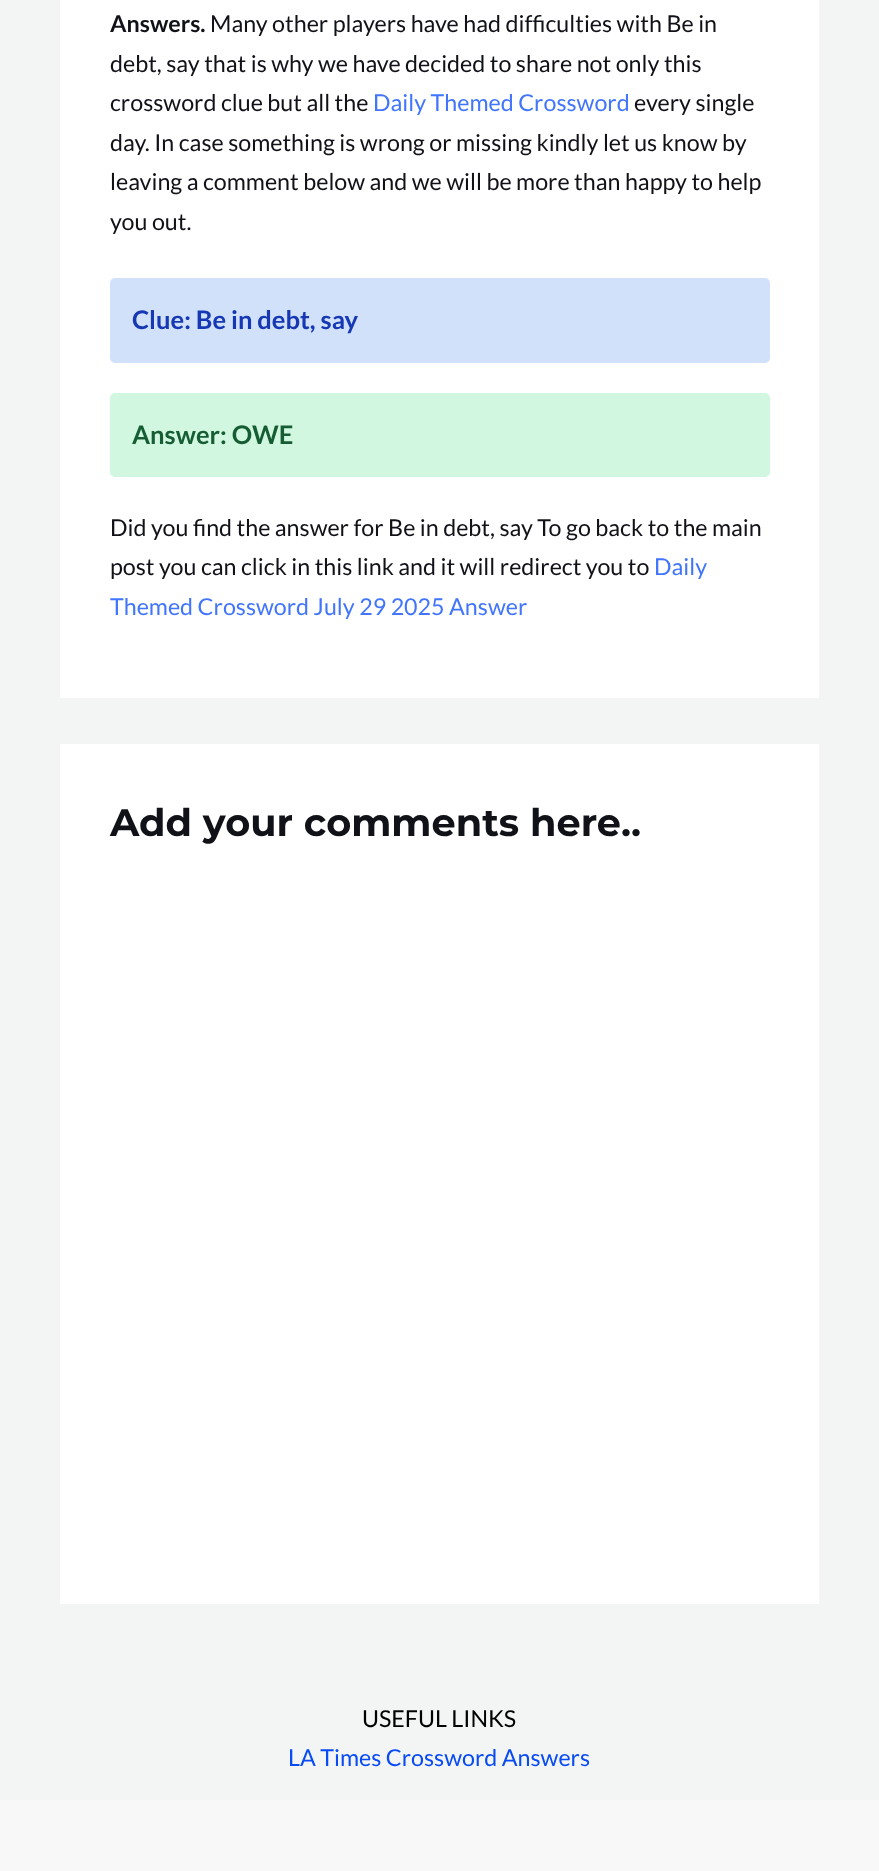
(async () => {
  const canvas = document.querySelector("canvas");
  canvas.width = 879;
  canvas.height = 1871;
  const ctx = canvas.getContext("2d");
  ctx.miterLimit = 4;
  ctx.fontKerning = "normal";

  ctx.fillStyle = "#f3f5f5";
  ctx.fillRect(0, 0, 879, 1871);
  ctx.fillStyle = "#ffffff";
  ctx.fillRect(60, 0, 759, 698);
  ctx.fillStyle = "#d1e1f9";
  ctx.beginPath();
  ctx.roundRect(110, 278, 660, 85, 5);
  ctx.fill();
  ctx.fillStyle = "#d1f7e1";
  ctx.beginPath();
  ctx.roundRect(110, 393, 660, 84, 5);
  ctx.fill();
  ctx.fillStyle = "#ffffff";
  ctx.fillRect(60, 744, 759, 860);
  ctx.fillStyle = "#f8f8f8";
  ctx.fillRect(0, 1800, 879, 71);
  ctx.font = "bold 23.25px Lato";
  ctx.fillStyle = "#101218";
  ctx.fillText("Answers.", 110, 32);
  ctx.font = "23.25px Lato";
  for (const [text, x, y] of [
    ["Many other players have had difficulties with Be in", 210, 32],
    ["debt, say that is why we have decided to share not only this", 110, 72],
    ["crossword clue but all the", 110, 111],
  ]) {
    ctx.fillText(text, x, y);
  }
  ctx.fillStyle = "#4175fc";
  ctx.fillText("Daily Themed Crossword", 373, 111);
  ctx.fillStyle = "#101218";
  for (const [text, x, y] of [
    ["every single", 634, 111],
    ["day. In case something is wrong or missing kindly let us know by", 110, 151],
    ["leaving a comment below and we will be more than happy to help", 110, 190],
    ["you out.", 110, 230],
  ]) {
    ctx.fillText(text, x, y);
  }
  ctx.font = "bold 25.5px Lato";
  ctx.fillStyle = "#1638b4";
  ctx.fillText("Clue: Be in debt, say", 132, 329);
  ctx.fillStyle = "#165d33";
  ctx.fillText("Answer: OWE", 132, 444);
  ctx.font = "23.25px Lato";
  ctx.fillStyle = "#101218";
  ctx.fillText("Did you find the answer for Be in debt, say To go back to the main", 110, 536);
  ctx.fillText("post you can click in this link and it will redirect you to", 110, 575);
  ctx.fillStyle = "#4175fc";
  ctx.fillText("Daily", 654, 575);
  ctx.fillText("Themed Crossword July 29 2025 Answer", 110, 615);
  ctx.font = "100 38.25px Montserrat";
  ctx.fillStyle = "#101218";
  ctx.fillText("Add your comments here..", 110, 836);
  ctx.font = "23.25px Lato";
  ctx.fillStyle = "#000000";
  ctx.fillText("USEFUL LINKS", 362, 1727);
  ctx.fillStyle = "#084af3";
  ctx.fillText("LA Times Crossword Answers", 288, 1766);
})();
